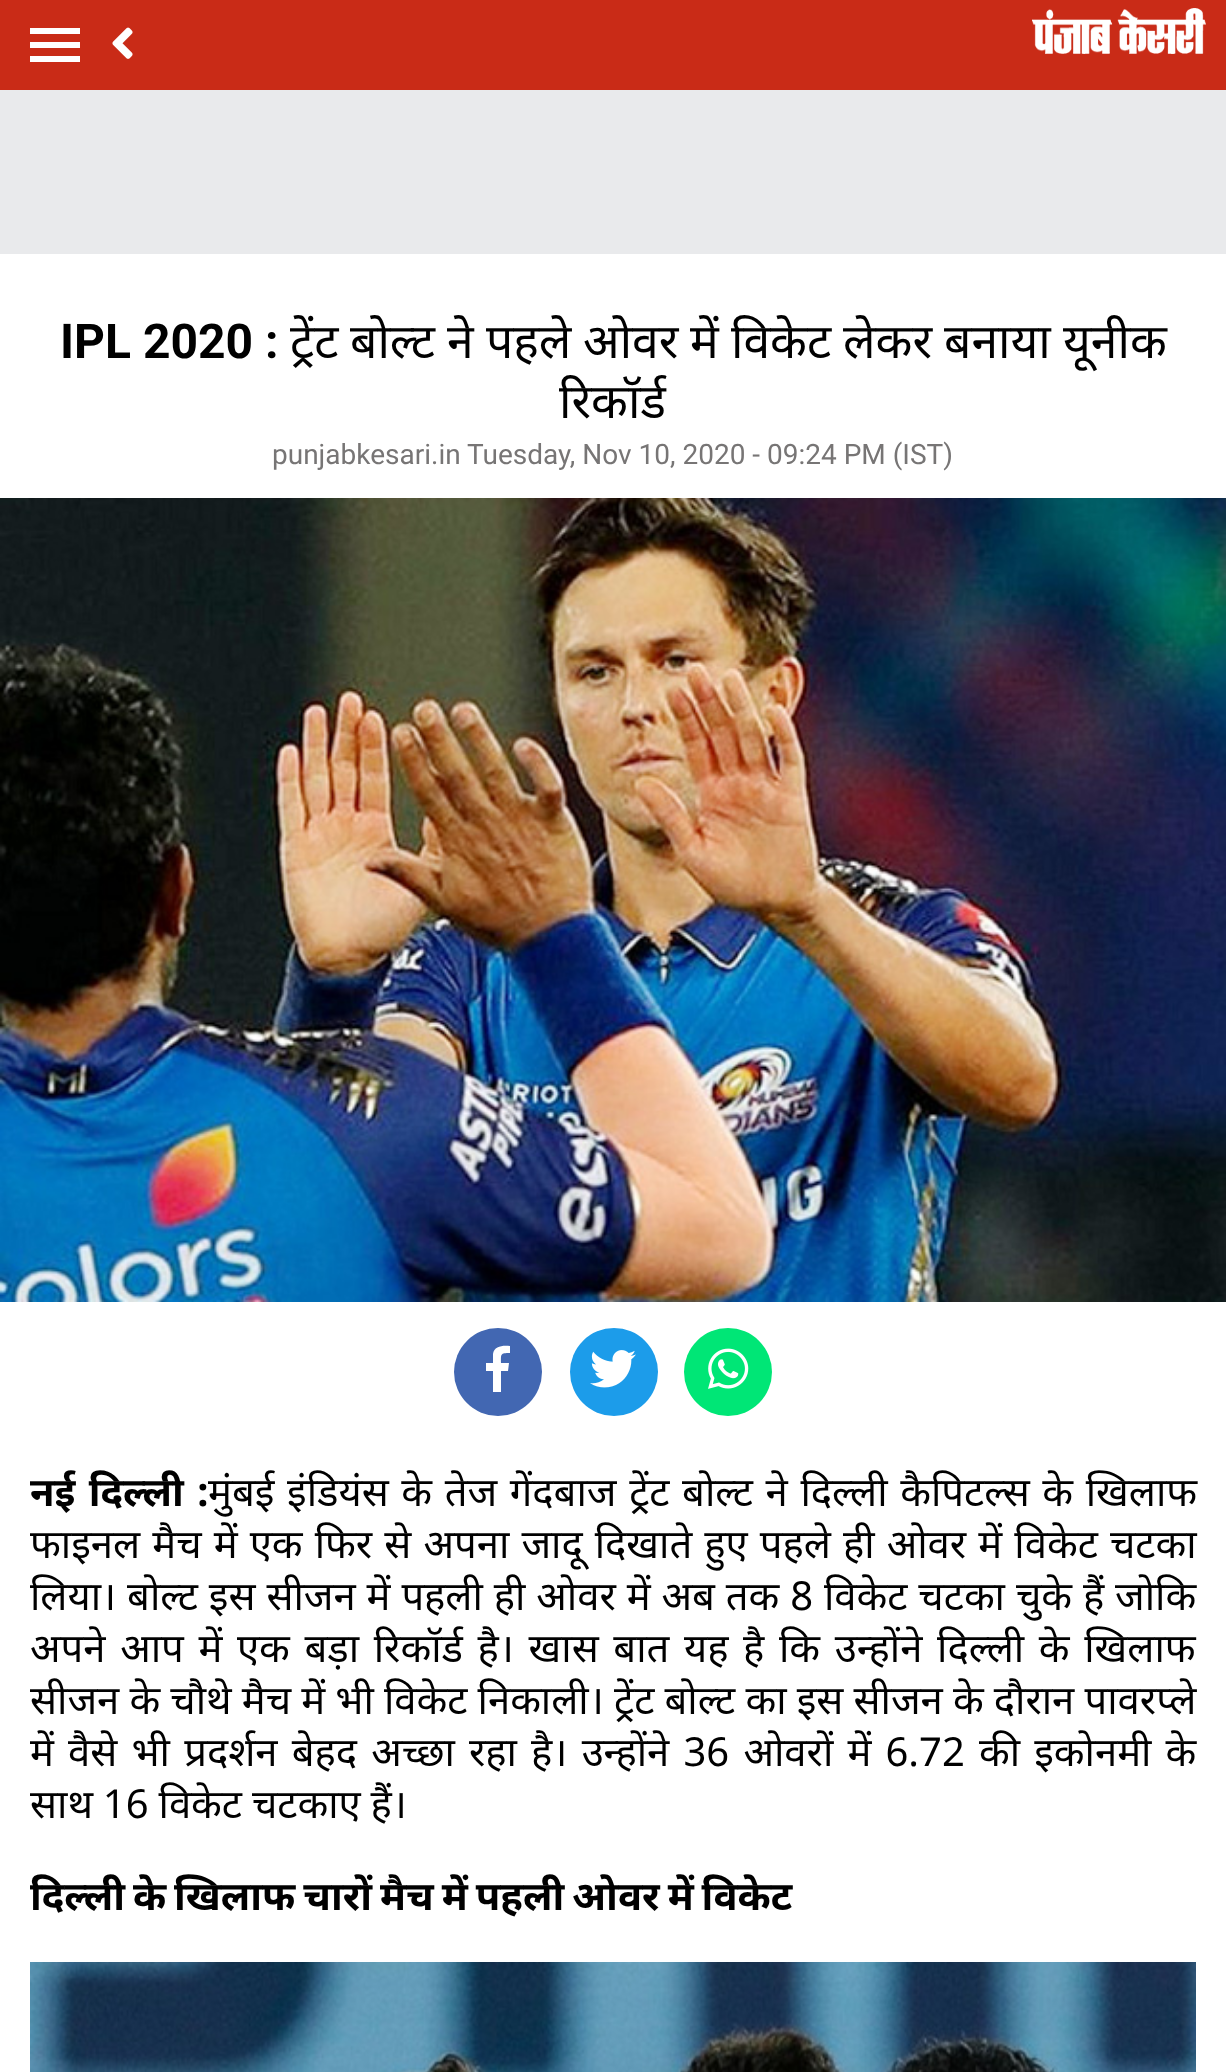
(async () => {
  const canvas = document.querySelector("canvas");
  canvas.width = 1226;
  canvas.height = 2072;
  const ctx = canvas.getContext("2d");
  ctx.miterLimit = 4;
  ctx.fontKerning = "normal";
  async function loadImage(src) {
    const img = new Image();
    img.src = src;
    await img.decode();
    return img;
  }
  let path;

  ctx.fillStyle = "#e9eaec";
  ctx.fillRect(0, 0, 1226, 2072);
  for (const [x, y, w, h, color] of [
    [0, 0, 1226, 90, "#c92b17"],
    [30, 28, 50, 6, "#ffffff"],
    [30, 42, 50, 6, "#ffffff"],
    [30, 56, 50, 6, "#ffffff"],
  ]) {
    ctx.fillStyle = color;
    ctx.fillRect(x, y, w, h);
  }
  ctx.drawImage(await loadImage("img/1.png"), 112, 27, 21, 32);
  ctx.drawImage(await loadImage("img/2.png"), 1032, 8, 174, 46);
  ctx.fillRect(0, 254, 1226, 1818);
  ctx.drawImage(await loadImage("img/3.png"), 0, 498, 1226, 804);
  ctx.fillStyle = "#4267b2";
  ctx.beginPath();
  ctx.arc(498, 1372, 44, 0, Math.PI * 2);
  ctx.fill();
  ctx.fillStyle = "#ffffff";
  path = new Path2D("M493 1392V1371H486V1363H493V1354C494 1346 503 1345 510 1346V1353C500 1353 501 1354 501 1363H509L508 1371H501V1392Z");
  ctx.fill(path);
  ctx.fillStyle = "#1c9cea";
  ctx.beginPath();
  ctx.arc(614, 1372, 44, 0, Math.PI * 2);
  ctx.fill();
  ctx.drawImage(await loadImage("img/4.png"), 590, 1350, 46, 38);
  ctx.fillStyle = "#00e676";
  ctx.beginPath();
  ctx.arc(728, 1372, 44, 0, Math.PI * 2);
  ctx.fill();
  ctx.drawImage(await loadImage("img/5.png"), 708, 1348, 41, 41);
  ctx.drawImage(await loadImage("img/6.png"), 30, 1962, 1166, 110);
  ctx.font = "bold 48px Roboto";
  ctx.fillStyle = "#000000";
  ctx.fillText("IPL 2020 :", 60, 358);
  ctx.font = "48px Noto Sans";
  for (const [text, x, y] of [
    ["ट्रेंट", 290, 358],
    ["बोल्ट", 350, 358],
    ["ने", 447, 358],
    ["पहले", 486, 358],
    ["ओवर", 583, 358],
    ["में", 690, 358],
    ["विकेट", 731, 358],
    ["लेकर", 843, 358],
    ["बनाया", 944, 358],
    ["यूनीक", 1063, 358],
    ["रिकॉर्ड", 559, 418],
  ]) {
    ctx.fillText(text, x, y);
  }
  ctx.font = "28px Roboto";
  ctx.fillStyle = "#777575";
  ctx.fillText("punjabkesari.in Tuesday, Nov 10, 2020 - 09:24 PM (IST)", 272, 464);
  ctx.wordSpacing = "3px";
  ctx.font = "bold 40px Noto Sans";
  ctx.fillStyle = "#000000";
  ctx.fillText("नई दिल्ली :", 30, 1506);
  ctx.wordSpacing = "2.25px";
  ctx.font = "40px Noto Sans";
  ctx.fillText("मुंबई इंडियंस के तेज गेंदबाज ट्रेंट बोल्ट ने दिल्ली कैपिटल्स के खिलाफ", 208, 1506);
  ctx.wordSpacing = "1.7px";
  ctx.fillText("फाइनल मैच में एक फिर से अपना जादू दिखाते हुए पहले ही ओवर में विकेट चटका", 30, 1558);
  ctx.wordSpacing = "0.5px";
  ctx.fillText("लिया। बोल्ट इस सीजन में पहली ही ओवर में अब तक 8 विकेट चटका चुके हैं जोकि", 30, 1610);
  ctx.wordSpacing = "4.25px";
  ctx.fillText("अपने आप में एक बड़ा रिकॉर्ड है। खास बात यह है कि उन्होंने दिल्ली के खिलाफ", 30, 1662);
  ctx.wordSpacing = "-0.25px";
  ctx.fillText("सीजन के चौथे मैच में भी विकेट निकाली। ट्रेंट बोल्ट का इस सीजन के दौरान पावरप्ले", 30, 1714);
  ctx.wordSpacing = "3.75px";
  ctx.fillText("में वैसे भी प्रदर्शन बेहद अच्छा रहा है। उन्होंने 36 ओवरों में 6.72 की इकोनमी के", 30, 1766);
  ctx.wordSpacing = "-0.5px";
  ctx.fillText("साथ 16 विकेट चटकाए हैं।", 30, 1818);
  ctx.wordSpacing = "-2.5px";
  ctx.font = "bold 40px Noto Sans";
  ctx.fillText("दिल्ली के खिलाफ चारों मैच में पहली ओवर में विकेट", 30, 1910);
})();
